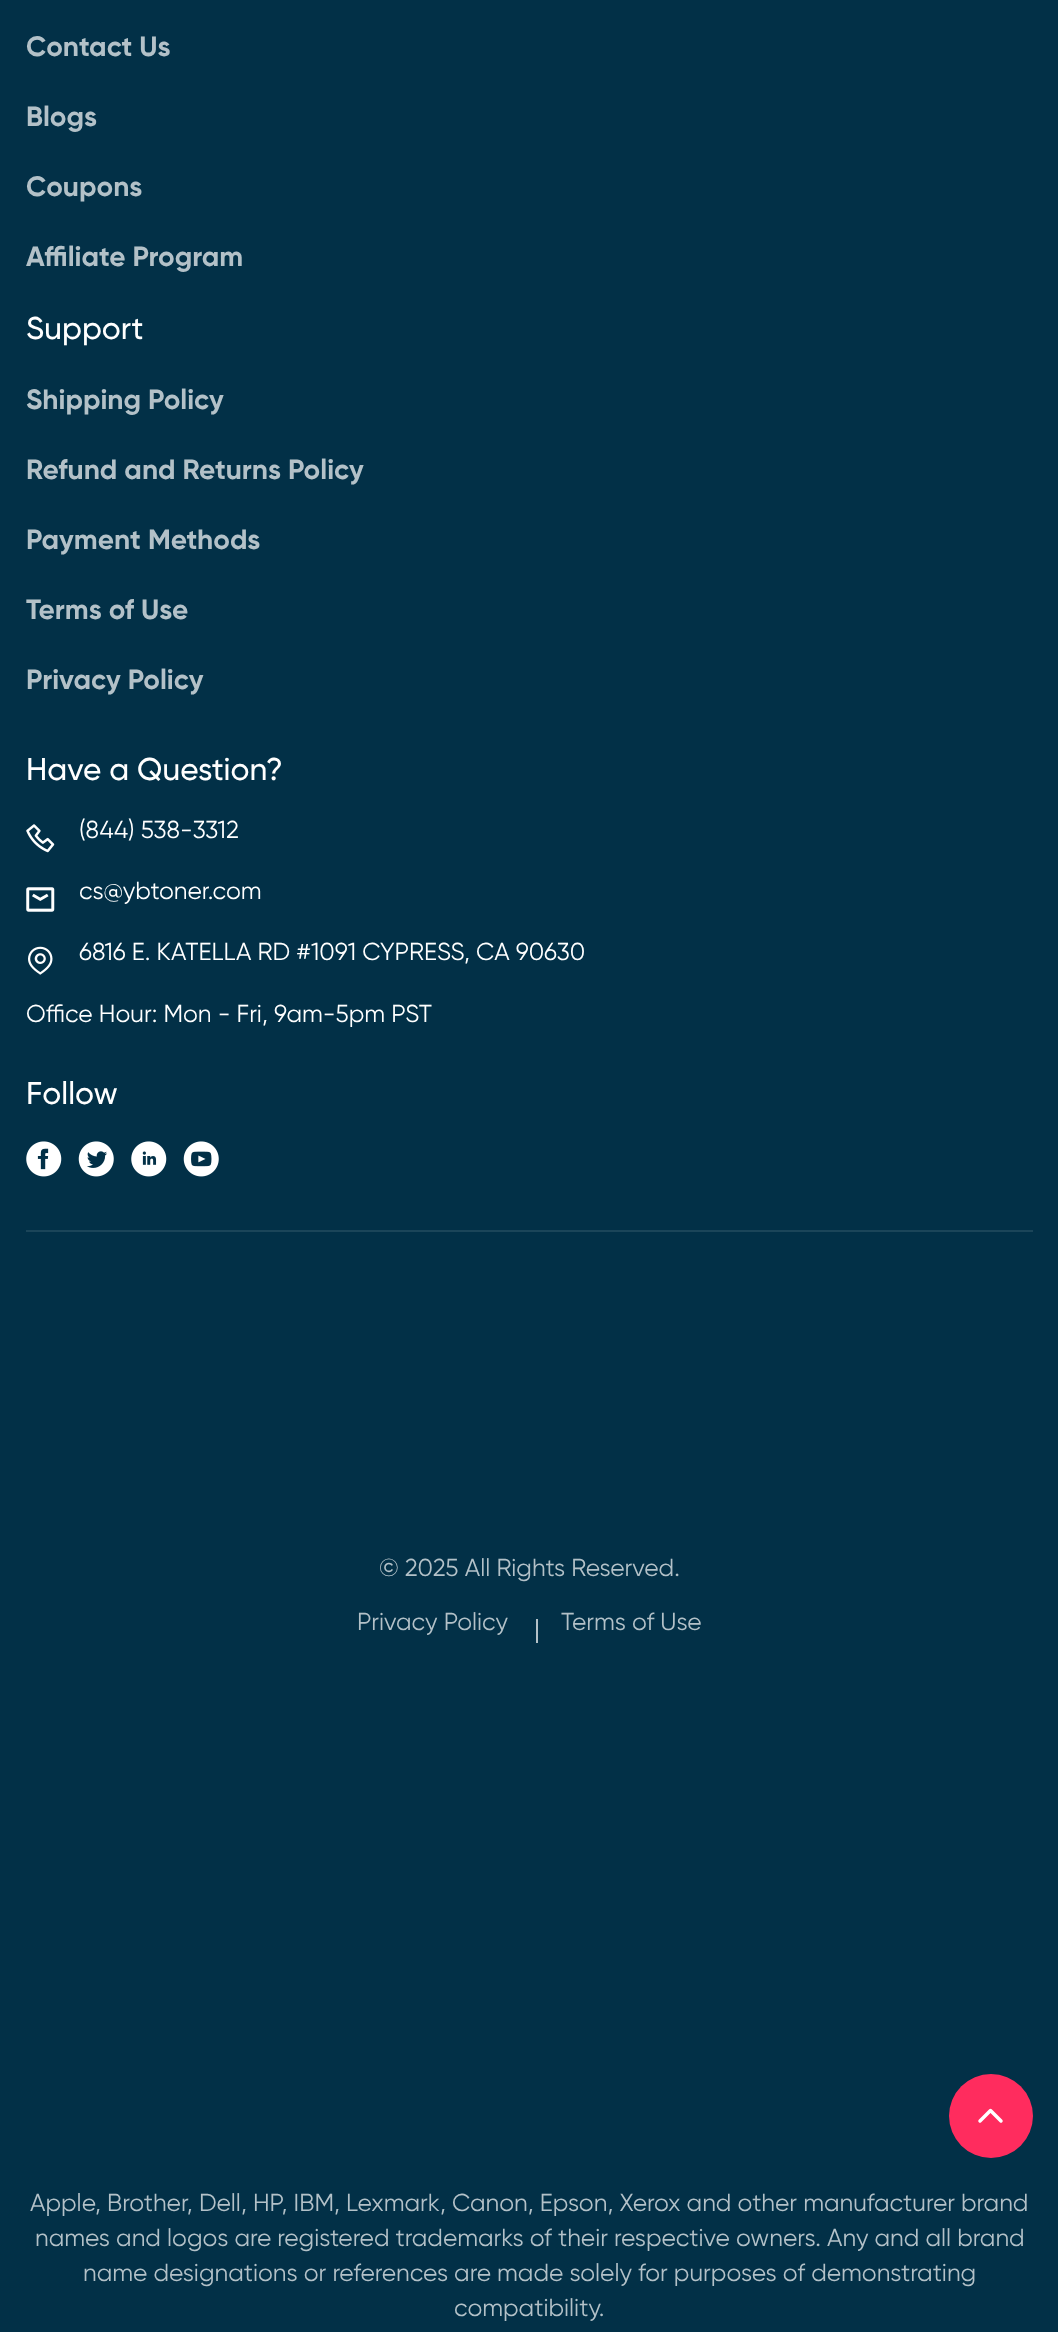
(async () => {
  const canvas = document.querySelector("canvas");
  canvas.width = 1058;
  canvas.height = 2332;
  const ctx = canvas.getContext("2d");
  ctx.miterLimit = 4;
  ctx.fontKerning = "normal";
  async function loadImage(src) {
    const img = new Image();
    img.src = src;
    await img.decode();
    return img;
  }
  let path;

  ctx.fillStyle = "#023047";
  ctx.fillRect(0, 0, 1058, 2332);
  ctx.drawImage(await loadImage("img/1.png"), 26, 824, 29, 29);
  ctx.drawImage(await loadImage("img/2.png"), 26, 887, 29, 25);
  ctx.drawImage(await loadImage("img/3.png"), 28, 946, 25, 29);
  ctx.drawImage(await loadImage("img/4.png"), 26, 1141, 36, 36);
  ctx.drawImage(await loadImage("img/5.png"), 78, 1141, 36, 36);
  ctx.drawImage(await loadImage("img/6.png"), 131, 1141, 36, 36);
  ctx.drawImage(await loadImage("img/7.png"), 183, 1141, 36, 36);
  ctx.fillStyle = "#1b4559";
  ctx.fillRect(26, 1230, 1007, 2);
  ctx.fillStyle = "#b3c1c8";
  ctx.fillRect(536, 1619, 2, 24);
  ctx.fillStyle = "#ff2c5e";
  ctx.beginPath();
  ctx.arc(991, 2116, 42, 0, Math.PI * 2);
  ctx.fill();
  path = new Path2D("M1001 2121L990.5 2110.5L980 2121");
  ctx.strokeStyle = "#ffffff";
  ctx.lineWidth = 3.5;
  ctx.lineCap = "round";
  ctx.lineJoin = "round";
  ctx.stroke(path);
  ctx.font = "bold 28px Gilroy";
  ctx.fillStyle = "#b3c1c8";
  for (const [text, x, y] of [
    ["Contact Us", 26, 56],
    ["Blogs", 26, 126],
    ["Coupons", 26, 196],
    ["Affiliate Program", 26, 266],
  ]) {
    ctx.fillText(text, x, y);
  }
  ctx.font = "500 31.5px Gilroy";
  ctx.fillStyle = "#ffffff";
  ctx.fillText("Support", 26, 339);
  ctx.font = "bold 28px Gilroy";
  ctx.fillStyle = "#b3c1c8";
  for (const [text, x, y] of [
    ["Shipping Policy", 26, 409],
    ["Refund and Returns Policy", 26, 479],
    ["Payment Methods", 26, 549],
    ["Terms of Use", 26, 619],
    ["Privacy Policy", 26, 689],
  ]) {
    ctx.fillText(text, x, y);
  }
  ctx.font = "500 31.5px Gilroy";
  ctx.fillStyle = "#ffffff";
  ctx.fillText("Have a Question?", 26, 780);
  ctx.font = "24.5px Gilroy";
  for (const [text, x, y] of [
    ["(844) 538-3312", 79, 838],
    ["cs@ybtoner.com", 79, 899],
    ["6816 E. KATELLA RD #1091 CYPRESS, CA 90630", 79, 960],
    ["Office Hour: Mon - Fri, 9am-5pm PST", 26, 1022],
  ]) {
    ctx.fillText(text, x, y);
  }
  ctx.font = "500 31.5px Gilroy";
  ctx.fillText("Follow", 26, 1104);
  ctx.font = "24.5px Gilroy";
  ctx.fillStyle = "#b3c1c8";
  for (const [text, x, y] of [
    ["© 2025 All Rights Reserved.", 379, 1576],
    ["Privacy Policy", 357, 1630],
    ["Terms of Use", 561, 1630],
    ["Apple, Brother, Dell, HP, IBM, Lexmark, Canon, Epson, Xerox and other manufacturer brand", 30, 2211],
    ["names and logos are registered trademarks of their respective owners. Any and all brand", 35, 2246],
    ["name designations or references are made solely for purposes of demonstrating", 83, 2281],
    ["compatibility.", 454, 2316],
  ]) {
    ctx.fillText(text, x, y);
  }
})();
